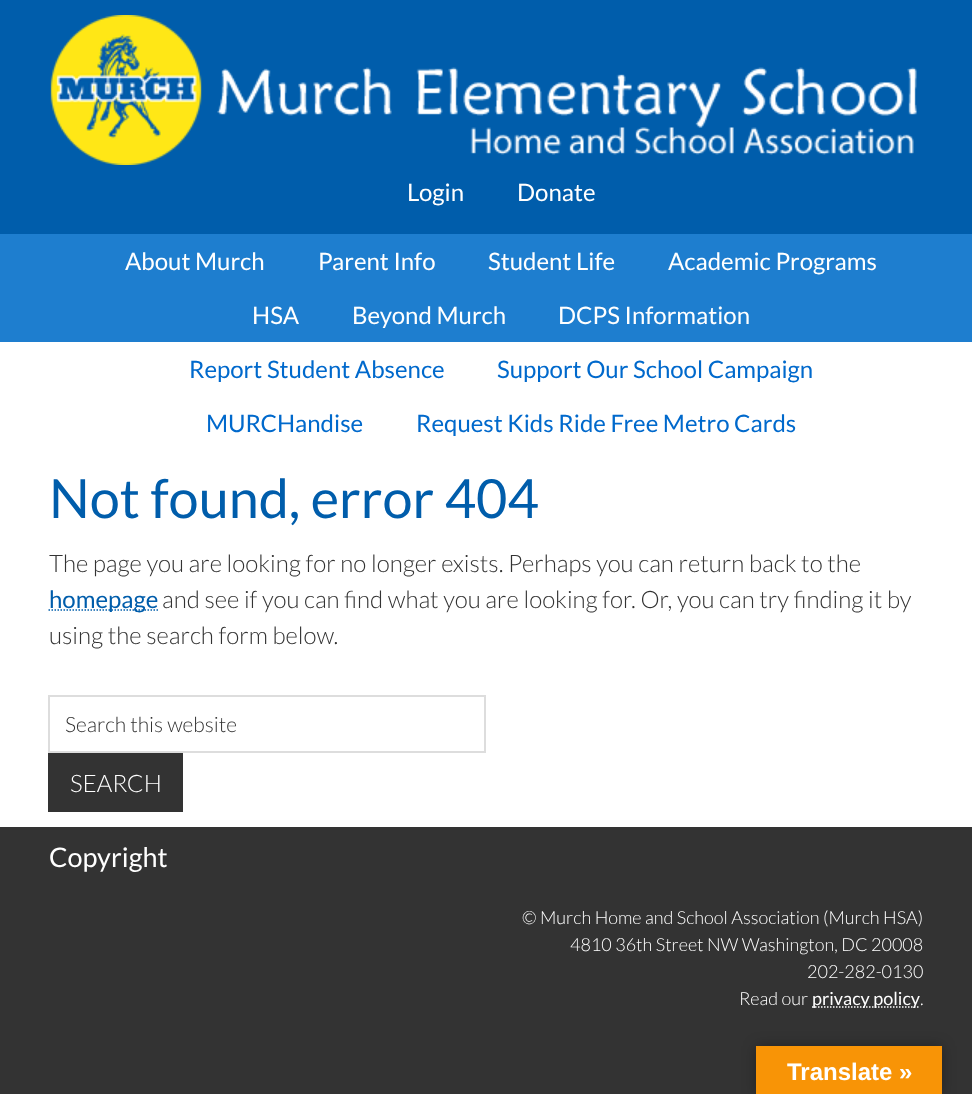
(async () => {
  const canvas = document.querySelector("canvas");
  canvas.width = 972;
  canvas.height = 1094;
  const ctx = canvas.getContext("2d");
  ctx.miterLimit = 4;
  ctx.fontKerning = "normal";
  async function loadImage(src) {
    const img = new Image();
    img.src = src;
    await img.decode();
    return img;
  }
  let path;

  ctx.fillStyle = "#ffffff";
  ctx.fillRect(0, 0, 972, 1094);
  ctx.fillStyle = "#005dab";
  ctx.fillRect(0, 0, 972, 234);
  ctx.drawImage(await loadImage("img/1.png"), 50, 15, 867, 150);
  ctx.fillStyle = "#1e7ecf";
  ctx.fillRect(0, 234, 972, 108);
  path = new Path2D("M48.5 610H158");
  ctx.strokeStyle = "#005dab";
  ctx.lineWidth = 1.5;
  ctx.setLineDash([1.5, 1.5]);
  ctx.stroke(path);
  ctx.strokeStyle = "#dddddd";
  ctx.lineWidth = 2;
  ctx.setLineDash([]);
  ctx.strokeRect(49, 696, 436, 56);
  ctx.fillStyle = "#333333";
  ctx.fillRect(48, 753, 135, 59);
  ctx.fillRect(0, 827, 972, 267);
  path = new Path2D("M812 1007H920");
  ctx.strokeStyle = "#ffffff";
  ctx.lineWidth = 1.5;
  ctx.setLineDash([1.5, 1.5]);
  ctx.stroke(path);
  ctx.fillStyle = "rgba(0, 0, 0, 0.3)";
  ctx.filter = "blur(7px)";
  ctx.beginPath();
  ctx.rect(756, 1046, 186, 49);
  ctx.fill();
  ctx.filter = "none";
  ctx.fillStyle = "#f89406";
  ctx.fillRect(756, 1046, 186, 48);
  ctx.font = "24px Lato";
  ctx.fillStyle = "#ffffff";
  for (const [text, x, y] of [
    ["Login", 407, 201],
    ["Donate", 517, 201],
    ["About Murch", 125, 270],
    ["Parent Info", 318, 270],
    ["Student Life", 488, 270],
    ["Academic Programs", 668, 270],
    ["HSA", 252, 324],
    ["Beyond Murch", 352, 324],
    ["DCPS Information", 558, 324],
  ]) {
    ctx.fillText(text, x, y);
  }
  ctx.fillStyle = "#0069cc";
  for (const [text, x, y] of [
    ["Report Student Absence", 189, 378],
    ["Support Our School Campaign", 497, 378],
    ["MURCHandise", 206, 432],
    ["Request Kids Ride Free Metro Cards", 416, 432],
  ]) {
    ctx.fillText(text, x, y);
  }
  ctx.font = "54px Lato";
  ctx.fillStyle = "#005dab";
  ctx.fillText("Not found, error 404", 49, 518);
  ctx.font = "300 24px Lato";
  ctx.fillStyle = "#333333";
  ctx.fillText("The page you are looking for no longer exists. Perhaps you can return back to the", 49, 572);
  ctx.font = "24px Lato";
  ctx.fillStyle = "#005dab";
  ctx.fillText("homepage", 49, 608);
  ctx.font = "300 24px Lato";
  ctx.fillStyle = "#333333";
  ctx.fillText("and see if you can find what you are looking for. Or, you can try finding it by", 162, 608);
  ctx.fillText("using the search form below.", 49, 644);
  ctx.font = "300 21px Lato";
  ctx.fillText("Search this website", 65, 732);
  ctx.font = "300 24px Lato";
  ctx.fillStyle = "#ffffff";
  ctx.fillText("SEARCH", 70, 792);
  ctx.font = "27px Lato";
  ctx.fillText("Copyright", 49, 867);
  ctx.font = "300 18px Lato";
  for (const [text, x, y] of [
    ["© Murch Home and School Association (Murch HSA)", 522, 924],
    ["4810 36th Street NW Washington, DC 20008", 570, 951],
    ["202-282-0130", 807, 978],
    ["Read our", 739, 1005],
  ]) {
    ctx.fillText(text, x, y);
  }
  ctx.font = "18px Lato";
  ctx.fillText("privacy policy", 812, 1005);
  ctx.font = "300 18px Lato";
  ctx.fillText(".", 920, 1005);
  ctx.font = "bold 24px Liberation Sans";
  ctx.fillText("Translate »", 787, 1080);
})();
